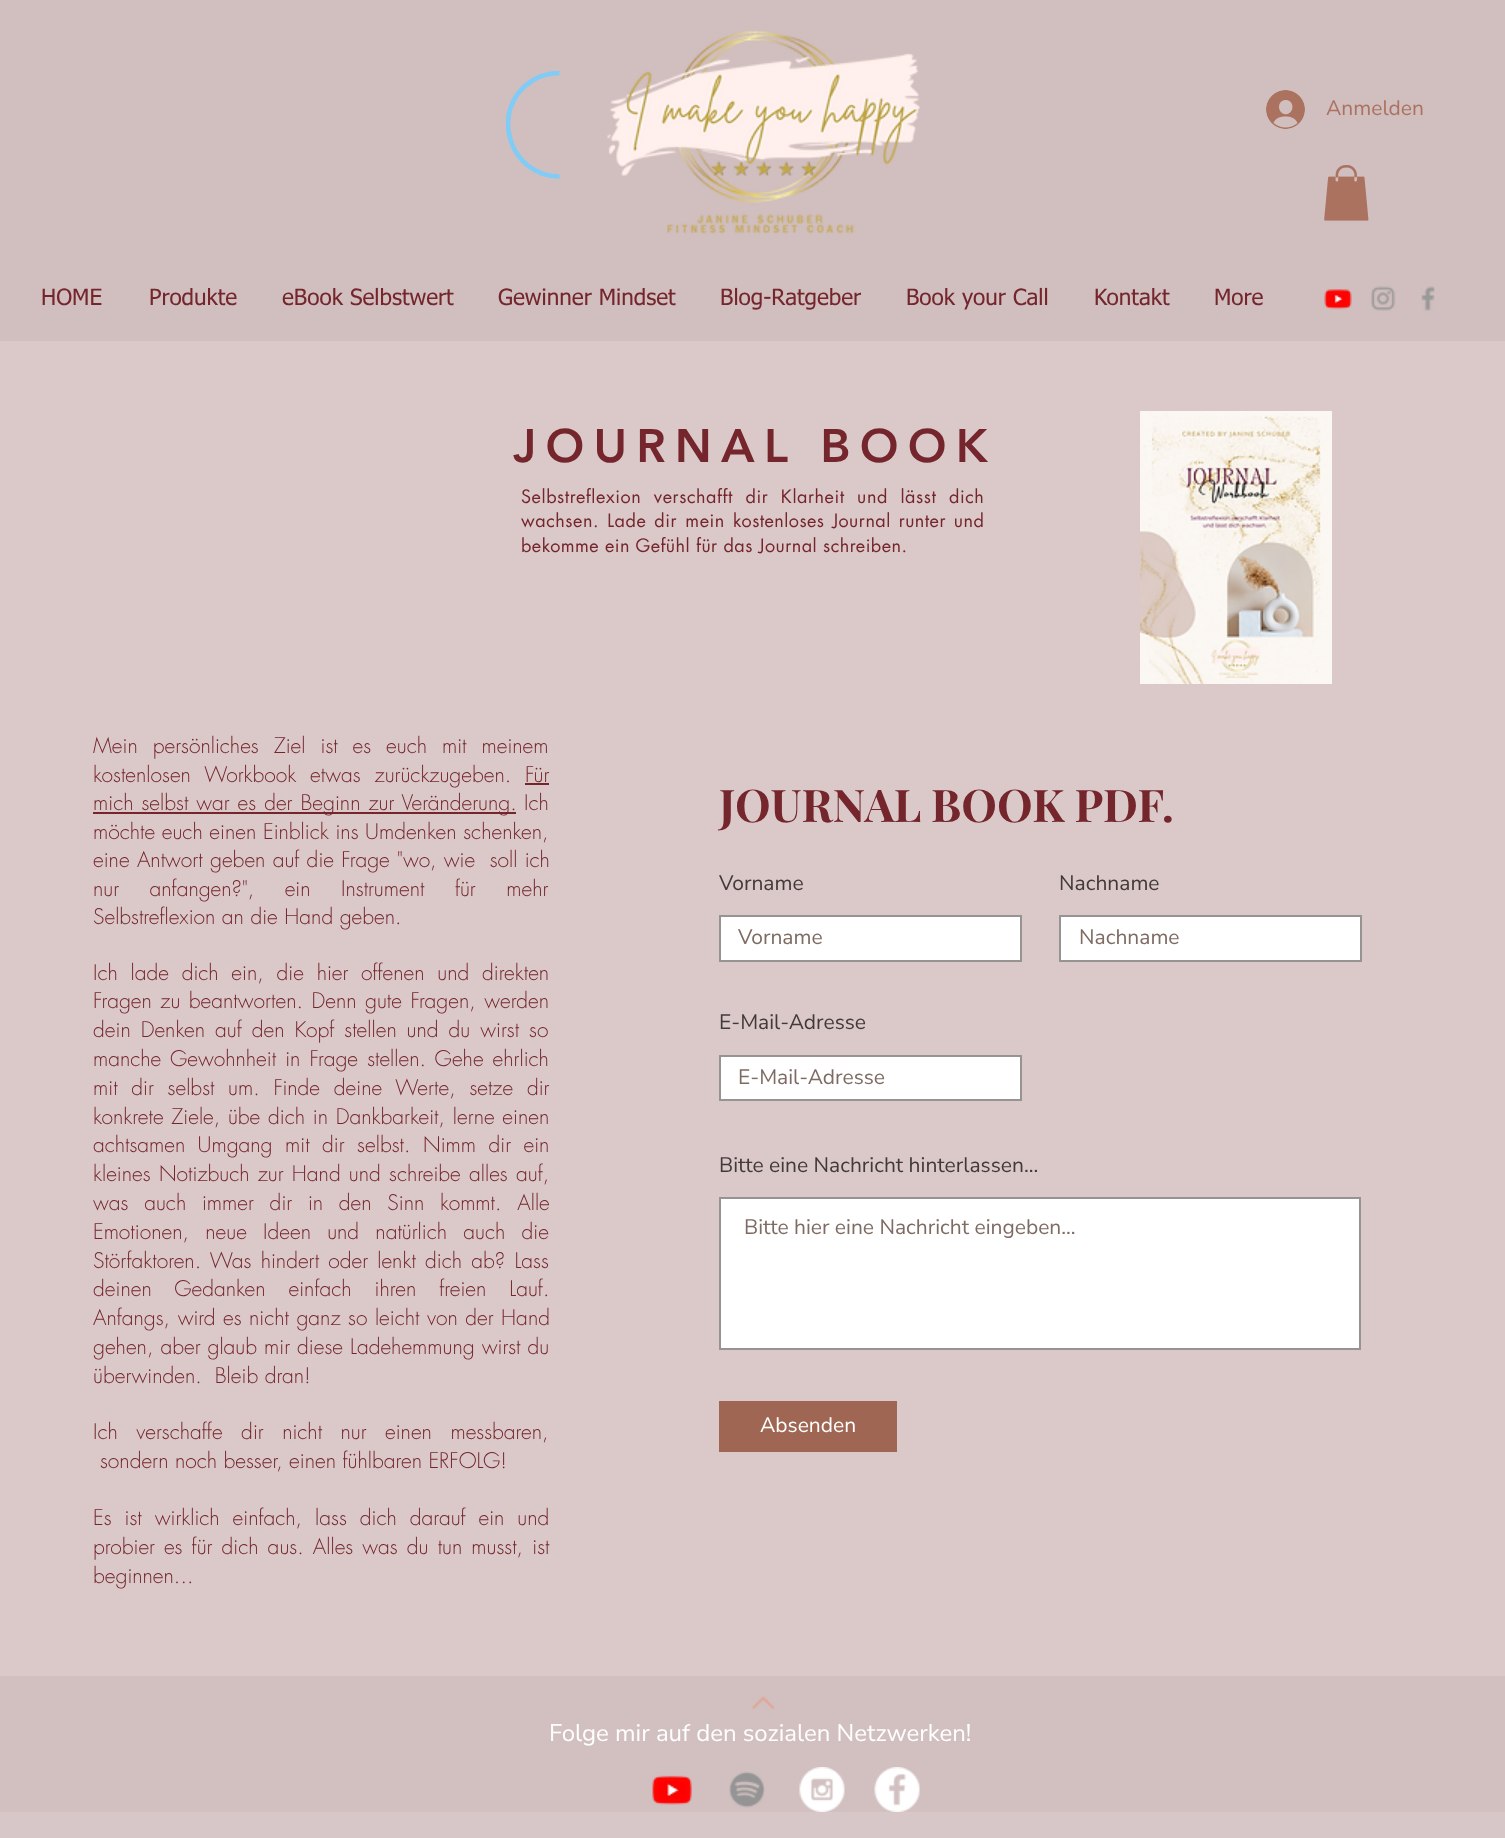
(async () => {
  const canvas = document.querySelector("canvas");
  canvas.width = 1505;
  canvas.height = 1838;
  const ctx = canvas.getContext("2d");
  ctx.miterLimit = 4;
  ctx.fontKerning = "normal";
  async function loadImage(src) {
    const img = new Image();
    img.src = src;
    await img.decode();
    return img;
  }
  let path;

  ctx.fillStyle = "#d7c7c8";
  ctx.fillRect(0, 0, 1505, 1838);
  ctx.fillStyle = "#d1bebf";
  ctx.fillRect(0, 0, 1505, 341);
  ctx.drawImage(await loadImage("img/1.png"), 607, 31, 313, 204);
  ctx.drawImage(await loadImage("img/2.png"), 1266, 90, 39, 39);
  ctx.drawImage(await loadImage("img/3.png"), 1324, 165, 45, 56);
  ctx.drawImage(await loadImage("img/4.png"), 1324, 289, 28, 21);
  ctx.drawImage(await loadImage("img/5.png"), 1371, 286, 25, 25);
  ctx.drawImage(await loadImage("img/6.png"), 1421, 286, 14, 25);
  ctx.fillStyle = "#dbc9ca";
  ctx.fillRect(0, 341, 1505, 1335);
  ctx.save();
  ctx.beginPath();
  ctx.rect(506, 71, 54, 108);
  ctx.clip();
  path = new Path2D("M559.5 176.5C509 176.5 488.5 109.5 531 81.5C539 76 549.5 73 559.5 73");
  ctx.strokeStyle = "#7fccf7";
  ctx.lineWidth = 4.5;
  ctx.stroke(path);
  ctx.restore();
  ctx.drawImage(await loadImage("img/7.png"), 1140, 411, 192, 273);
  ctx.fillStyle = "#74262c";
  ctx.fillRect(525, 783, 24, 2);
  ctx.fillRect(93, 812, 423, 2);
  ctx.fillStyle = "#ffffff";
  ctx.beginPath();
  ctx.rect(720, 916, 301, 45);
  ctx.fill();
  ctx.strokeStyle = "#979392";
  ctx.lineWidth = 2;
  ctx.stroke();
  ctx.beginPath();
  ctx.rect(1060, 916, 301, 45);
  ctx.fill();
  ctx.stroke();
  ctx.beginPath();
  ctx.rect(720, 1056, 301, 44);
  ctx.fill();
  ctx.stroke();
  ctx.beginPath();
  ctx.rect(720, 1198, 640, 151);
  ctx.fill();
  ctx.stroke();
  ctx.fillStyle = "#a06654";
  ctx.fillRect(719, 1401, 178, 51);
  ctx.fillStyle = "#d2c0c1";
  ctx.fillRect(0, 1676, 1505, 136);
  ctx.drawImage(await loadImage("img/8.png"), 751, 1696, 24, 14);
  ctx.drawImage(await loadImage("img/9.png"), 652, 1775, 40, 30);
  ctx.drawImage(await loadImage("img/10.png"), 729, 1771, 36, 37);
  ctx.drawImage(await loadImage("img/11.png"), 799, 1767, 46, 45);
  ctx.drawImage(await loadImage("img/12.png"), 874, 1767, 46, 45);
  ctx.font = "21px Nunito Sans";
  ctx.fillStyle = "#ab7260";
  ctx.fillText("Anmelden", 1326, 115);
  ctx.font = "22.5px tahoma";
  ctx.fillStyle = "#74262c";
  for (const [text, x, y] of [
    ["HOME", 41, 305],
    ["Produkte", 149, 305],
    ["eBook Selbstwert", 282, 305],
    ["Gewinner Mindset", 498, 305],
    ["Blog-Ratgeber", 720, 305],
    ["Book your Call", 906, 305],
    ["Kontakt", 1094, 305],
    ["More", 1214, 305],
  ]) {
    ctx.fillText(text, x, y);
  }
  ctx.letterSpacing = "9.25px";
  ctx.font = "900 46.5px 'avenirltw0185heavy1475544'";
  ctx.fillText("JOURNAL BOOK", 513, 462);
  ctx.letterSpacing = "0.55px";
  ctx.wordSpacing = "6.5px";
  ctx.font = "18px futura";
  ctx.fillText("Selbstreflexion verschafft dir Klarheit und lässt dich", 521, 503);
  ctx.wordSpacing = "2px";
  ctx.fillText("wachsen. Lade dir mein", 521, 527);
  ctx.letterSpacing = "0.45px";
  ctx.fillText("kostenloses Journal runter und", 733, 527);
  ctx.wordSpacing = "0px";
  ctx.fillText("bekomme ein Gefühl für das Journal schreiben.", 521, 552);
  ctx.letterSpacing = "0px";
  ctx.wordSpacing = "8.5px";
  ctx.font = "300 21px futura";
  ctx.fillText("Mein persönliches Ziel ist es euch mit meinem", 93, 753);
  ctx.wordSpacing = "7.5px";
  ctx.fillText("kostenlosen Workbook etwas zurückzugeben.", 93, 782);
  ctx.wordSpacing = "0px";
  ctx.fillText("Für", 525, 782);
  ctx.wordSpacing = "1.5px";
  ctx.fillText("mich selbst war es der Beginn zur Veränderung.", 93, 810);
  ctx.wordSpacing = "0px";
  ctx.fillText("Ich", 524, 810);
  ctx.wordSpacing = "0.25px";
  ctx.fillText("möchte euch einen Einblick ins Umdenken schenken,", 93, 839);
  ctx.wordSpacing = "0.75px";
  ctx.fillText("eine Antwort geben auf die Frage \"wo, wie  soll ich", 93, 867);
  ctx.wordSpacing = "24px";
  ctx.fillText("nur anfangen?\", ein Instrument für mehr", 93, 896);
  ctx.wordSpacing = "0px";
  ctx.fillText("Selbstreflexion an die Hand geben.", 93, 924);
  ctx.wordSpacing = "6.25px";
  ctx.fillText("Ich lade dich ein, die hier offenen und direkten", 93, 980);
  ctx.wordSpacing = "2px";
  ctx.fillText("Fragen zu beantworten. Denn gute Fragen, werden", 93, 1008);
  ctx.wordSpacing = "3.5px";
  ctx.fillText("dein Denken auf den Kopf stellen und du wirst so", 93, 1037);
  ctx.wordSpacing = "2.6px";
  ctx.fillText("manche Gewohnheit in Frage stellen. Gehe ehrlich", 93, 1066);
  ctx.wordSpacing = "7.25px";
  ctx.fillText("mit dir selbst um. Finde deine Werte, setze dir", 93, 1095);
  ctx.wordSpacing = "1.25px";
  ctx.fillText("konkrete Ziele, übe dich in Dankbarkeit, lerne einen", 93, 1124);
  ctx.wordSpacing = "6px";
  ctx.fillText("achtsamen Umgang mit dir selbst. Nimm dir ein", 93, 1152);
  ctx.wordSpacing = "1.75px";
  ctx.fillText("kleines Notizbuch zur Hand und schreibe alles auf,", 93, 1181);
  ctx.wordSpacing = "9.25px";
  ctx.fillText("was auch immer dir in den Sinn kommt. Alle", 93, 1210);
  ctx.wordSpacing = "9.75px";
  ctx.fillText("Emotionen, neue Ideen und natürlich auch die", 93, 1239);
  ctx.wordSpacing = "2.75px";
  ctx.fillText("Störfaktoren. Was hindert oder lenkt dich ab? Lass", 93, 1268);
  ctx.wordSpacing = "16.5px";
  ctx.fillText("deinen Gedanken einfach ihren freien Lauf.", 93, 1296);
  ctx.wordSpacing = "1px";
  ctx.fillText("Anfangs, wird es nicht ganz so leicht von der Hand", 93, 1325);
  ctx.wordSpacing = "0.5px";
  ctx.fillText("gehen, aber glaub mir diese Ladehemmung wirst du", 93, 1354);
  ctx.wordSpacing = "0px";
  ctx.fillText("überwinden.  Bleib dran!", 93, 1383);
  ctx.wordSpacing = "12px";
  ctx.fillText("Ich verschaffe dir nicht nur einen messbaren,", 93, 1439);
  ctx.wordSpacing = "0px";
  ctx.fillText("sondern noch besser, einen fühlbaren ERFOLG!", 100, 1468);
  ctx.wordSpacing = "6.5px";
  ctx.fillText("Es ist wirklich einfach, lass dich darauf ein und", 93, 1525);
  ctx.wordSpacing = "2.6px";
  ctx.fillText("probier es für dich aus. Alles was du tun musst, ist", 93, 1554);
  ctx.wordSpacing = "0px";
  ctx.fillText("beginnen...", 93, 1583);
  ctx.font = "bold 45px Playfair Display";
  ctx.fillText("JOURNAL BOOK PDF.", 719, 822);
  ctx.font = "21px Nunito Sans";
  ctx.fillStyle = "#413a38";
  ctx.fillText("Vorname", 719, 890);
  ctx.fillStyle = "#7e6b63";
  ctx.fillText("Vorname", 738, 944);
  ctx.fillStyle = "#413a38";
  ctx.fillText("Nachname", 1059, 890);
  ctx.fillStyle = "#7e6b63";
  ctx.fillText("Nachname", 1079, 944);
  ctx.fillStyle = "#413a38";
  ctx.fillText("E-Mail-Adresse", 719, 1029);
  ctx.fillStyle = "#7e6b63";
  ctx.fillText("E-Mail-Adresse", 738, 1084);
  ctx.fillStyle = "#413a38";
  ctx.fillText("Bitte eine Nachricht hinterlassen...", 719, 1172);
  ctx.fillStyle = "#7e6b63";
  ctx.fillText("Bitte hier eine Nachricht eingeben...", 744, 1234);
  ctx.fillStyle = "#ffffff";
  ctx.fillText("Absenden", 760, 1432);
  ctx.font = "24px Nunito Sans";
  ctx.fillText("Folge mir auf den sozialen Netzwerken!", 549, 1741);
})();
